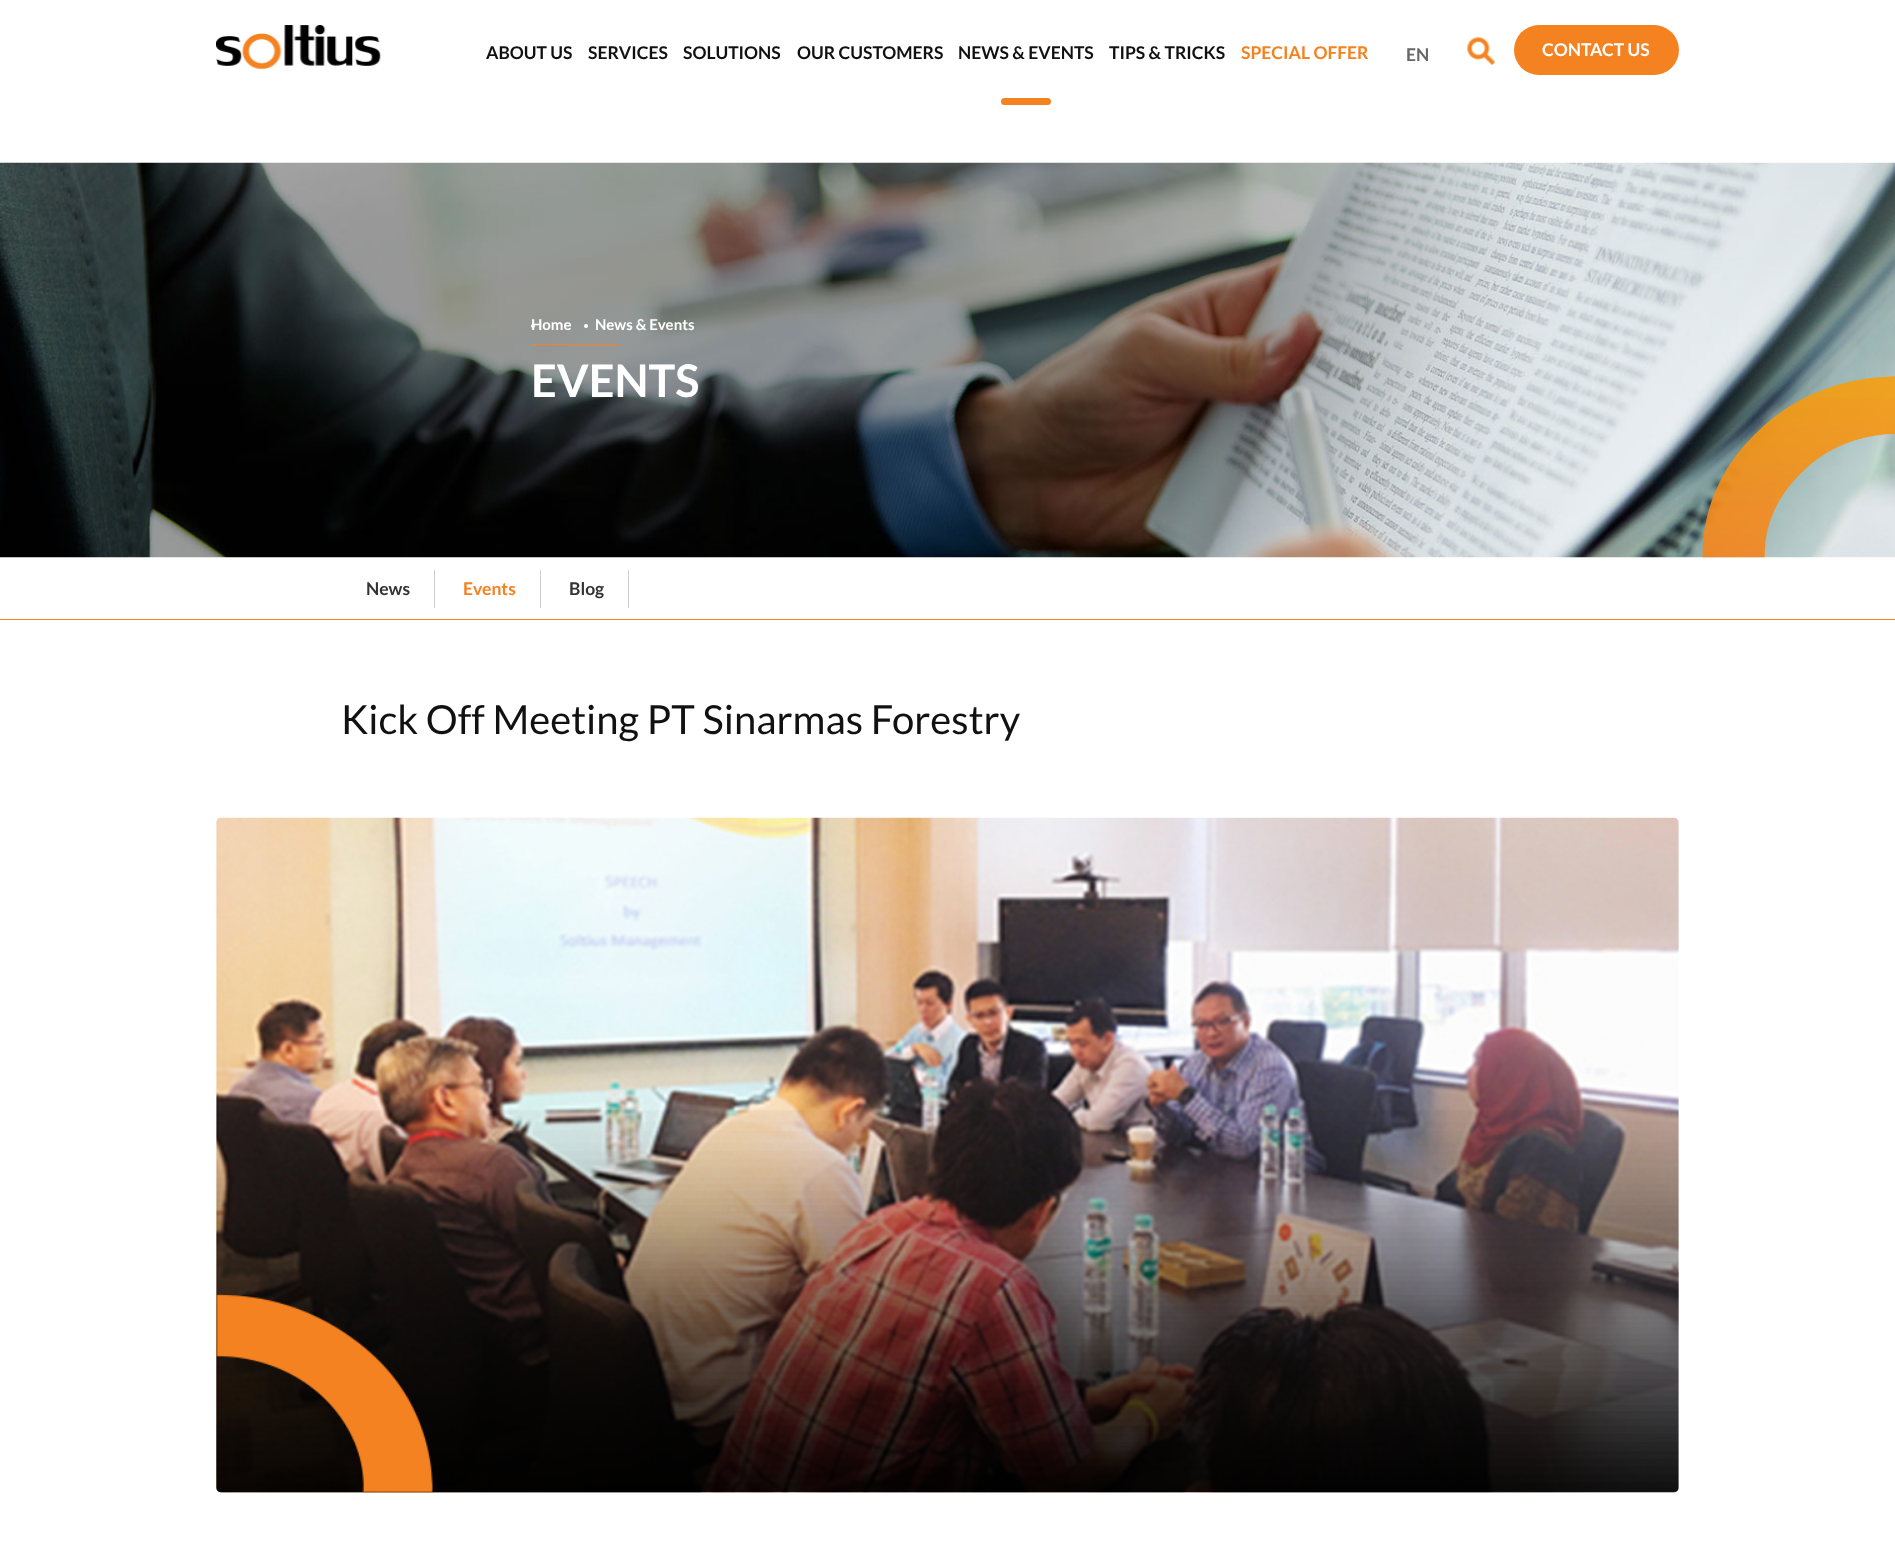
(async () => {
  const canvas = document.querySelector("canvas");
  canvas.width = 1895;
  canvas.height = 1565;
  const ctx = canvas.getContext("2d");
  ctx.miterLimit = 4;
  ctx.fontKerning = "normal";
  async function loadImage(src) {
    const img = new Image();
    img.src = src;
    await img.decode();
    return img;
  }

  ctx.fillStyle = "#ffffff";
  ctx.fillRect(0, 0, 1895, 1565);
  ctx.drawImage(await loadImage("img/1.png"), 216, 25, 165, 44);
  ctx.fillStyle = "#f58220";
  ctx.beginPath();
  ctx.roundRect(1001, 98, 50, 7, 3.5);
  ctx.fill();
  ctx.drawImage(await loadImage("img/2.png"), 1467, 37, 28, 28);
  ctx.beginPath();
  ctx.roundRect(1514, 25, 165, 50, 25);
  ctx.fill();
  ctx.drawImage(await loadImage("img/3.png"), 0, 162, 1895, 396);
  ctx.fillStyle = "#ffffff";
  ctx.beginPath();
  ctx.arc(533, 326, 2, 0, Math.PI * 2);
  ctx.fill();
  ctx.beginPath();
  ctx.arc(586, 326, 2, 0, Math.PI * 2);
  ctx.fill();
  ctx.fillStyle = "#f58220";
  ctx.fillRect(531, 344, 88, 1);
  ctx.drawImage(await loadImage("img/4.png"), 1702, 376, 193, 182);
  for (const [x, y, w, h, color] of [
    [0, 619, 1895, 1, "#f58220"],
    [434, 570, 1, 38, "#cccccc"],
    [540, 570, 1, 38, "#cccccc"],
    [628, 570, 1, 38, "#cccccc"],
  ]) {
    ctx.fillStyle = color;
    ctx.fillRect(x, y, w, h);
  }
  ctx.drawImage(await loadImage("img/5.png"), 216, 817, 1463, 676);
  ctx.drawImage(await loadImage("img/6.png"), 216, 1110, 1463, 383);
  ctx.drawImage(await loadImage("img/7.png"), 216, 1294, 217, 199);
  ctx.font = "bold 17.5px Lato";
  ctx.fillStyle = "#111111";
  for (const [text, x, y] of [
    ["ABOUT US", 486, 59],
    ["SERVICES", 588, 59],
    ["SOLUTIONS", 683, 59],
    ["OUR CUSTOMERS", 797, 59],
    ["NEWS & EVENTS", 958, 59],
    ["TIPS & TRICKS", 1109, 59],
  ]) {
    ctx.fillText(text, x, y);
  }
  ctx.fillStyle = "#f58220";
  ctx.fillText("SPECIAL OFFER", 1241, 59);
  ctx.fillStyle = "#666666";
  ctx.fillText("EN", 1406, 61);
  ctx.fillStyle = "#ffffff";
  ctx.fillText("CONTACT US", 1542, 56);
  ctx.font = "bold 15px Lato";
  ctx.fillText("Home", 531, 330);
  ctx.fillText("News & Events", 595, 330);
  ctx.font = "bold 45px Lato";
  ctx.fillText("EVENTS", 531, 397);
  ctx.font = "bold 17.5px Lato";
  ctx.fillStyle = "#333333";
  ctx.fillText("News", 366, 595);
  ctx.fillStyle = "#f58220";
  ctx.fillText("Events", 463, 595);
  ctx.fillStyle = "#333333";
  ctx.fillText("Blog", 569, 595);
  ctx.font = "40px Lato";
  ctx.fillStyle = "#111111";
  ctx.fillText("Kick Off Meeting PT Sinarmas Forestry", 341, 734);
})();
